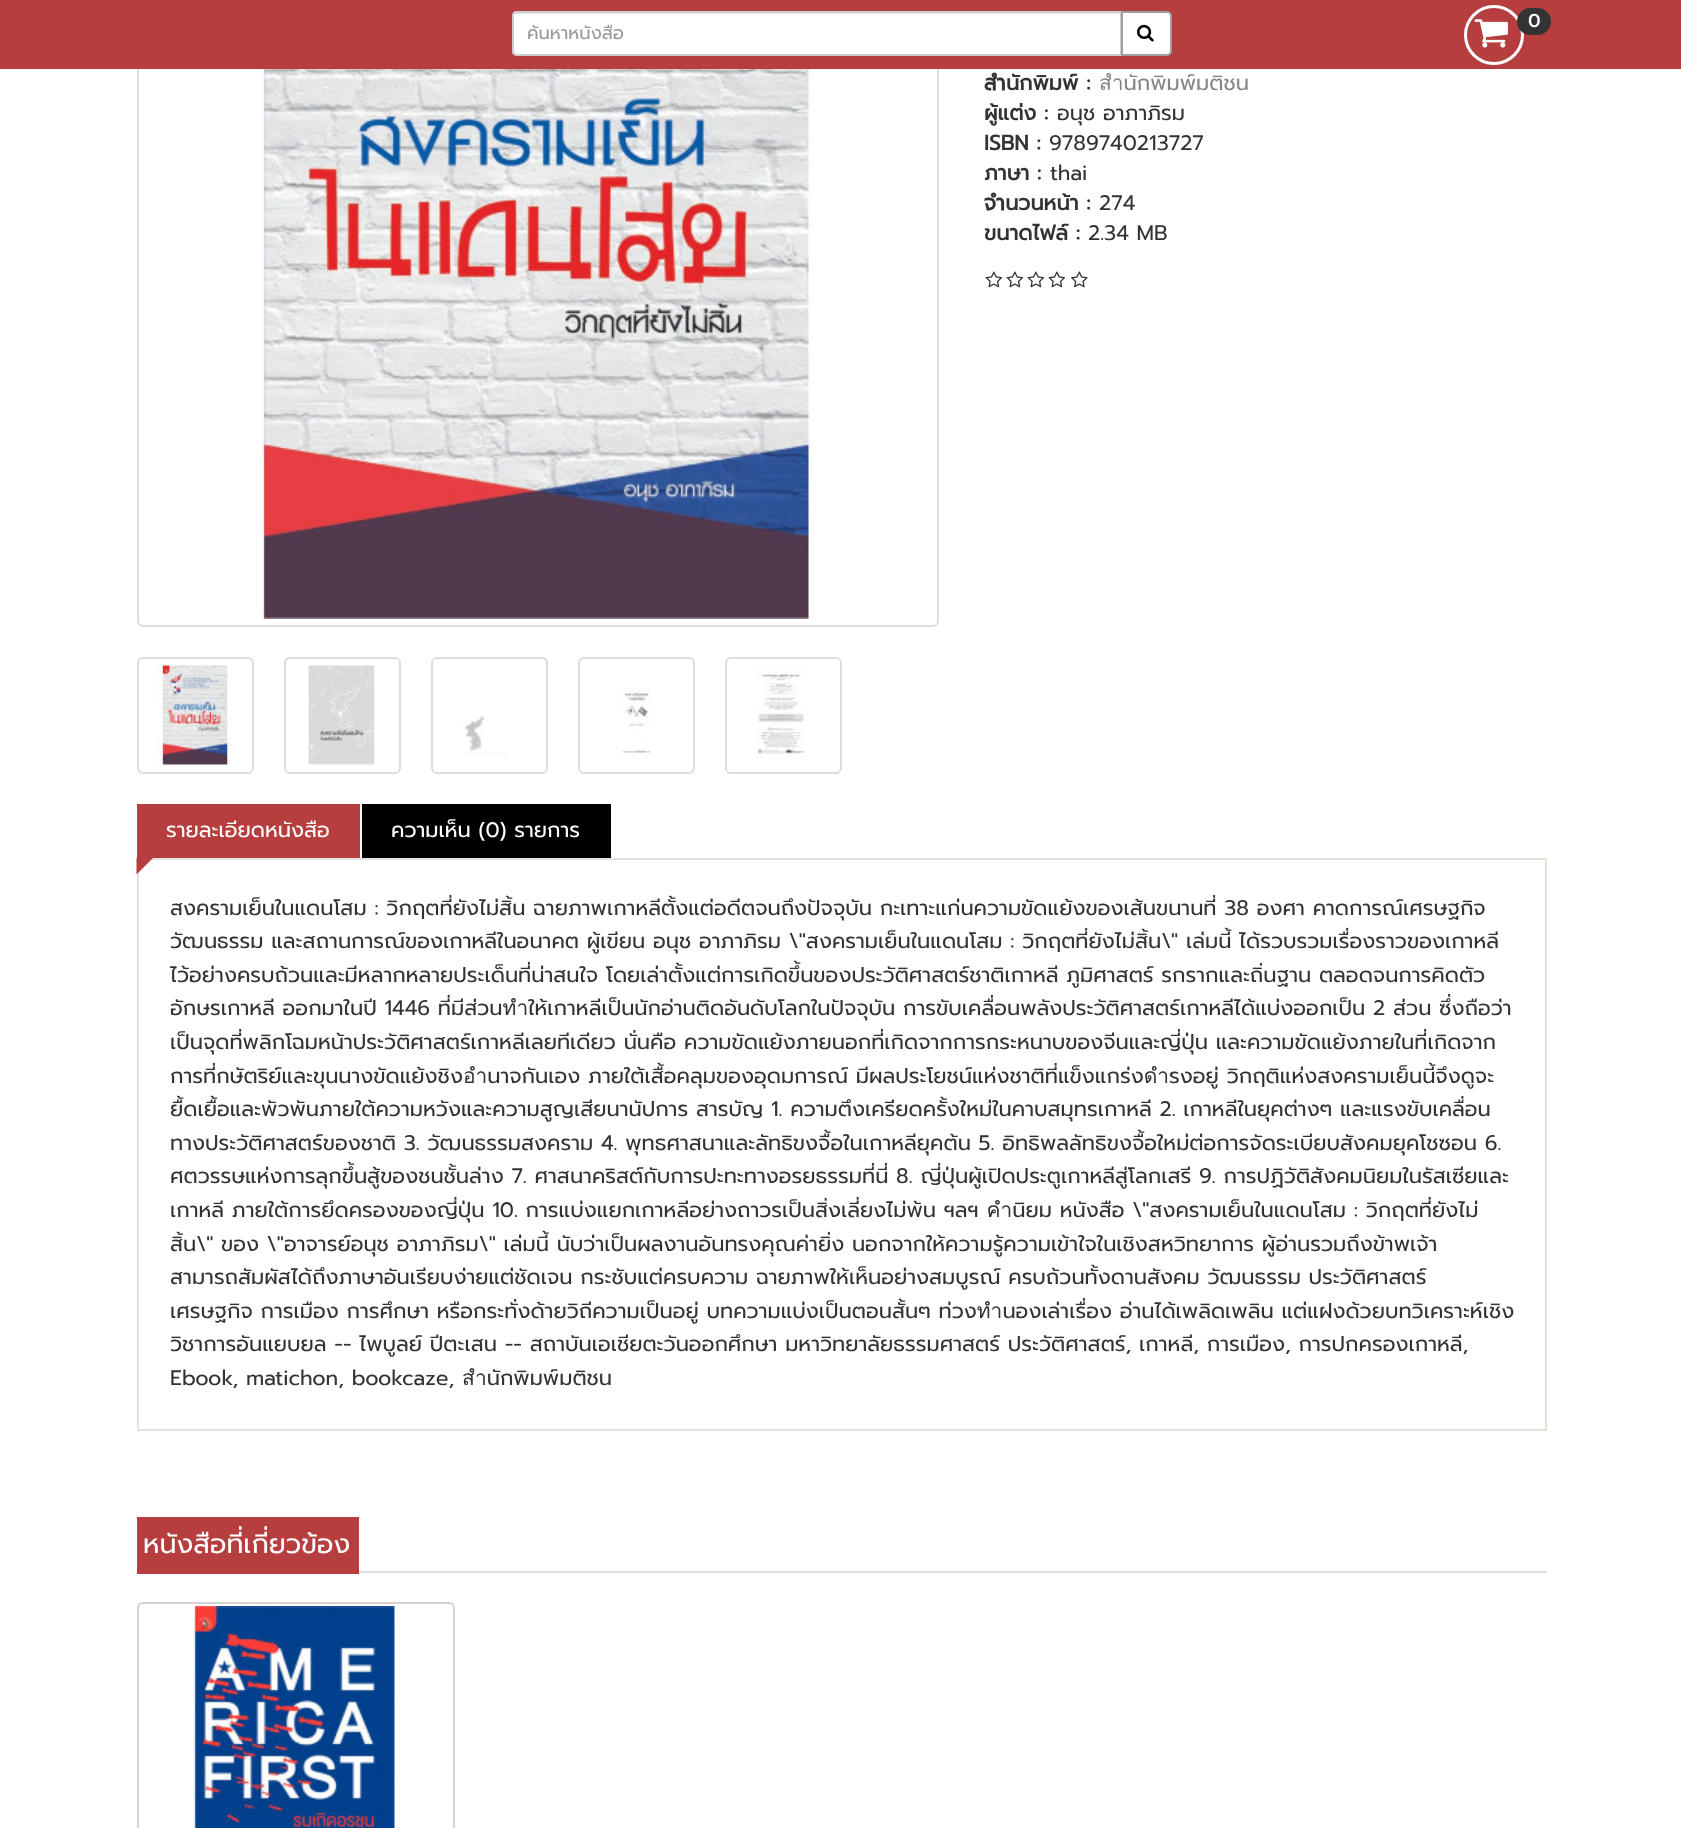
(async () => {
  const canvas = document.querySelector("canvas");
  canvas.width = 1681;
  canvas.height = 1828;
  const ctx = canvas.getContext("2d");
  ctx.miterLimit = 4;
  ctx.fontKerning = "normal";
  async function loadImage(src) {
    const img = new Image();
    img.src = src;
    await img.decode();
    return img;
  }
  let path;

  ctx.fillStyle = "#ffffff";
  ctx.fillRect(0, 0, 1681, 1828);
  ctx.beginPath();
  ctx.roundRect(138, -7, 800, 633, 5);
  ctx.strokeStyle = "#dddddd";
  ctx.lineWidth = 2;
  ctx.stroke();
  ctx.fillStyle = "#b73e3e";
  ctx.fillRect(0, 0, 1681, 69);
  ctx.beginPath();
  ctx.arc(1494, 35, 28.5, 0, Math.PI * 2);
  ctx.strokeStyle = "#ffffff";
  ctx.lineWidth = 3;
  ctx.stroke();
  ctx.drawImage(await loadImage("img/1.png"), 1474, 19, 34, 29);
  ctx.fillStyle = "#333333";
  ctx.beginPath();
  ctx.roundRect(1517, 8, 34, 27, 13.5);
  ctx.fill();
  ctx.fillStyle = "#ffffff";
  ctx.beginPath();
  ctx.roundRect(512, 11, 610, 45, [5, 0, 0, 5]);
  ctx.fill();
  ctx.fillStyle = "#ececec";
  path = new Path2D("M516 14H1120V54H1121V12H516C514 12 513 13 513 15V16C513 15 514 14 516 14Z");
  ctx.fill(path);
  ctx.beginPath();
  ctx.roundRect(513, 12, 608, 43, [4, 0, 0, 4]);
  ctx.strokeStyle = "#cccccc";
  ctx.lineWidth = 2;
  ctx.stroke();
  ctx.fillStyle = "#ffffff";
  ctx.beginPath();
  ctx.roundRect(1122, 12, 49, 43, [0, 4, 4, 0]);
  ctx.fill();
  ctx.strokeStyle = "#9f9f9e";
  ctx.stroke();
  ctx.drawImage(await loadImage("img/2.png"), 1137, 24, 17, 18);
  ctx.drawImage(await loadImage("img/3.png"), 261, 69, 552, 550);
  ctx.beginPath();
  ctx.roundRect(138, 658, 115, 115, 5);
  ctx.strokeStyle = "#dddddd";
  ctx.stroke();
  ctx.drawImage(await loadImage("img/4.png"), 156, 665, 75, 100);
  ctx.beginPath();
  ctx.roundRect(285, 658, 115, 115, 5);
  ctx.stroke();
  ctx.drawImage(await loadImage("img/5.png"), 308, 665, 67, 100);
  ctx.beginPath();
  ctx.roundRect(432, 658, 115, 115, 5);
  ctx.stroke();
  ctx.drawImage(await loadImage("img/6.png"), 463, 715, 46, 39);
  ctx.beginPath();
  ctx.roundRect(579, 658, 115, 115, 5);
  ctx.stroke();
  ctx.drawImage(await loadImage("img/7.png"), 622, 687, 29, 72);
  ctx.beginPath();
  ctx.roundRect(726, 658, 115, 115, 5);
  ctx.stroke();
  ctx.drawImage(await loadImage("img/8.png"), 756, 667, 49, 92);
  ctx.drawImage(await loadImage("img/9.png"), 985, 271, 18, 17);
  ctx.drawImage(await loadImage("img/9.png"), 1006, 271, 18, 17);
  ctx.drawImage(await loadImage("img/9.png"), 1027, 271, 18, 17);
  ctx.drawImage(await loadImage("img/9.png"), 1048, 271, 18, 17);
  ctx.drawImage(await loadImage("img/10.png"), 1071, 271, 17, 17);
  ctx.fillStyle = "#b73e3e";
  ctx.fillRect(137, 804, 223, 54);
  ctx.strokeStyle = "#e5e2dd";
  ctx.strokeRect(138, 859, 1408, 571);
  path = new Path2D("M136.5 858H153L136.5 874.5Z");
  ctx.fill(path);
  for (const [x, y, w, h, color] of [
    [362, 804, 249, 54, "#000000"],
    [359, 1571, 1188, 2, "#e0e0e0"],
    [137, 1517, 222, 57, "#b73e3e"],
  ]) {
    ctx.fillStyle = color;
    ctx.fillRect(x, y, w, h);
  }
  ctx.beginPath();
  ctx.roundRect(138, 1603, 316, 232, 5);
  ctx.strokeStyle = "#d3d3d3";
  ctx.stroke();
  ctx.drawImage(await loadImage("img/11.png"), 193, 1606, 204, 222);
  ctx.font = "bold 18px Prompt";
  ctx.fillStyle = "#ffffff";
  ctx.fillText("0", 1528, 27);
  ctx.save();
  ctx.beginPath();
  ctx.rect(528, 20, 578, 27);
  ctx.clip();
  ctx.font = "18px Prompt";
  ctx.fillStyle = "#999999";
  ctx.fillText("ค้นหาหนังสือ", 527, 39);
  ctx.restore();
  ctx.font = "bold 21px Prompt";
  ctx.fillStyle = "#333333";
  ctx.fillText("สำนักพิมพ์ :", 984, 90);
  ctx.font = "21px Prompt";
  ctx.fillStyle = "#868686";
  ctx.fillText("สำนักพิมพ์มติชน", 1099, 90);
  ctx.font = "bold 21px Prompt";
  ctx.fillStyle = "#333333";
  ctx.fillText("ผู้แต่ง :", 984, 120);
  ctx.font = "21px Prompt";
  ctx.fillText("อนุช อาภาภิรม", 1057, 120);
  ctx.font = "bold 21px Prompt";
  ctx.fillText("ISBN :", 984, 150);
  ctx.font = "21px Prompt";
  ctx.fillText("9789740213727", 1049, 150);
  ctx.font = "bold 21px Prompt";
  ctx.fillText("ภาษา :", 984, 180);
  ctx.font = "21px Prompt";
  ctx.fillText("thai", 1050, 180);
  ctx.font = "bold 21px Prompt";
  ctx.fillText("จำนวนหน้า :", 984, 210);
  ctx.font = "21px Prompt";
  ctx.fillText("274", 1099, 210);
  ctx.font = "bold 21px Prompt";
  ctx.fillText("ขนาดไฟล์ :", 984, 240);
  ctx.font = "21px Prompt";
  ctx.fillText("2.34 MB", 1088, 240);
  ctx.fillStyle = "#ffffff";
  ctx.fillText("รายละเอียดหนังสือ", 166, 837);
  ctx.fillText("ความเห็น (0) รายการ", 391, 837);
  ctx.fillStyle = "#333333";
  for (const [text, x, y] of [
    ["สงครามเย็นในแดนโสม : วิกฤตที่ยังไม่สิ้น ฉายภาพเกาหลีตั้งแต่อดีตจนถึงปัจจุบัน กะเทาะแก่นความขัดแย้งของเส้นขนานที่ 38 องศา คาดการณ์เศรษฐกิจ", 170, 915],
    ["วัฒนธรรม และสถานการณ์ของเกาหลีในอนาคต ผู้เขียน อนุช อาภาภิรม \\\"สงครามเย็นในแดนโสม : วิกฤตที่ยังไม่สิ้น\\\" เล่มนี้ ได้รวบรวมเรื่องราวของเกาหลี", 170, 948],
    ["ไว้อย่างครบถ้วนและมีหลากหลายประเด็นที่น่าสนใจ โดยเล่าตั้งแต่การเกิดขึ้นของประวัติศาสตร์ชาติเกาหลี ภูมิศาสตร์ รกรากและถิ่นฐาน ตลอดจนการคิดตัว", 170, 982],
    ["อักษรเกาหลี ออกมาในปี 1446 ที่มีส่วนทำให้เกาหลีเป็นนักอ่านติดอันดับโลกในปัจจุบัน การขับเคลื่อนพลังประวัติศาสตร์เกาหลีได้แบ่งออกเป็น 2 ส่วน ซึ่งถือว่า", 170, 1015],
    ["เป็นจุดที่พลิกโฉมหน้าประวัติศาสตร์เกาหลีเลยทีเดียว นั่นคือ ความขัดแย้งภายนอกที่เกิดจากการกระหนาบของจีนและญี่ปุ่น และความขัดแย้งภายในที่เกิดจาก", 170, 1049],
    ["การที่กษัตริย์และขุนนางขัดแย้งชิงอำนาจกันเอง ภายใต้เสื้อคลุมของอุดมการณ์ มีผลประโยชน์แห่งชาติที่แข็งแกร่งดำรงอยู่ วิกฤติแห่งสงครามเย็นนี้จึงดูจะ", 170, 1083],
    ["ยื้ดเยื้อและพัวพันภายใต้ความหวังและความสูญเสียนานัปการ สารบัญ 1. ความตึงเครียดครั้งใหม่ในคาบสมุทรเกาหลี 2. เกาหลีในยุคต่างๆ และแรงขับเคลื่อน", 170, 1116],
    ["ทางประวัติศาสตร์ของชาติ 3. วัฒนธรรมสงคราม 4. พุทธศาสนาและลัทธิขงจื้อในเกาหลียุคต้น 5. อิทธิพลลัทธิขงจื้อใหม่ต่อการจัดระเบียบสังคมยุคโชซอน 6.", 170, 1150],
    ["ศตวรรษแห่งการลุกขึ้นสู้ของชนชั้นล่าง 7. ศาสนาคริสต์กับการปะทะทางอรยธรรมที่นี่ 8. ญี่ปุ่นผู้เปิดประตูเกาหลีสู่โลกเสรี 9. การปฏิวัติสังคมนิยมในรัสเซียและ", 170, 1183],
    ["เกาหลี ภายใต้การยึดครองของญี่ปุ่น 10. การแบ่งแยกเกาหลีอย่างถาวรเป็นสิ่งเลี่ยงไม่พ้น ฯลฯ คำนิยม หนังสือ \\\"สงครามเย็นในแดนโสม : วิกฤตที่ยังไม่", 170, 1217],
    ["สิ้น\\\" ของ \\\"อาจารย์อนุช อาภาภิรม\\\" เล่มนี้ นับว่าเป็นผลงานอันทรงคุณค่ายิ่ง นอกจากให้ความรู้ความเข้าใจในเชิงสหวิทยาการ ผู้อ่านรวมถึงข้าพเจ้า", 170, 1251],
    ["สามารถสัมผัสได้ถึงภาษาอันเรียบง่ายแต่ชัดเจน กระชับแต่ครบความ ฉายภาพให้เห็นอย่างสมบูรณ์ ครบถ้วนทั้งดานสังคม วัฒนธรรม ประวัติศาสตร์", 170, 1284],
    ["เศรษฐกิจ การเมือง การศึกษา หรือกระทั่งด้ายวิถีความเป็นอยู่ บทความแบ่งเป็นตอนสั้นๆ ท่วงทำนองเล่าเรื่อง อ่านได้เพลิดเพลิน แต่แฝงด้วยบทวิเคราะห์เชิง", 170, 1318],
    ["วิชาการอันแยบยล -- ไพบูลย์ ปีตะเสน -- สถาบันเอเชียตะวันออกศึกษา มหาวิทยาลัยธรรมศาสตร์ ประวัติศาสตร์, เกาหลี, การเมือง, การปกครองเกาหลี,", 170, 1351],
    ["Ebook, matichon, bookcaze, สำนักพิมพ์มติชน", 170, 1385],
  ]) {
    ctx.fillText(text, x, y);
  }
  ctx.font = "27px Prompt";
  ctx.fillStyle = "#ffffff";
  ctx.fillText("หนังสือที่เกี่ยวข้อง", 143, 1553);
})();
